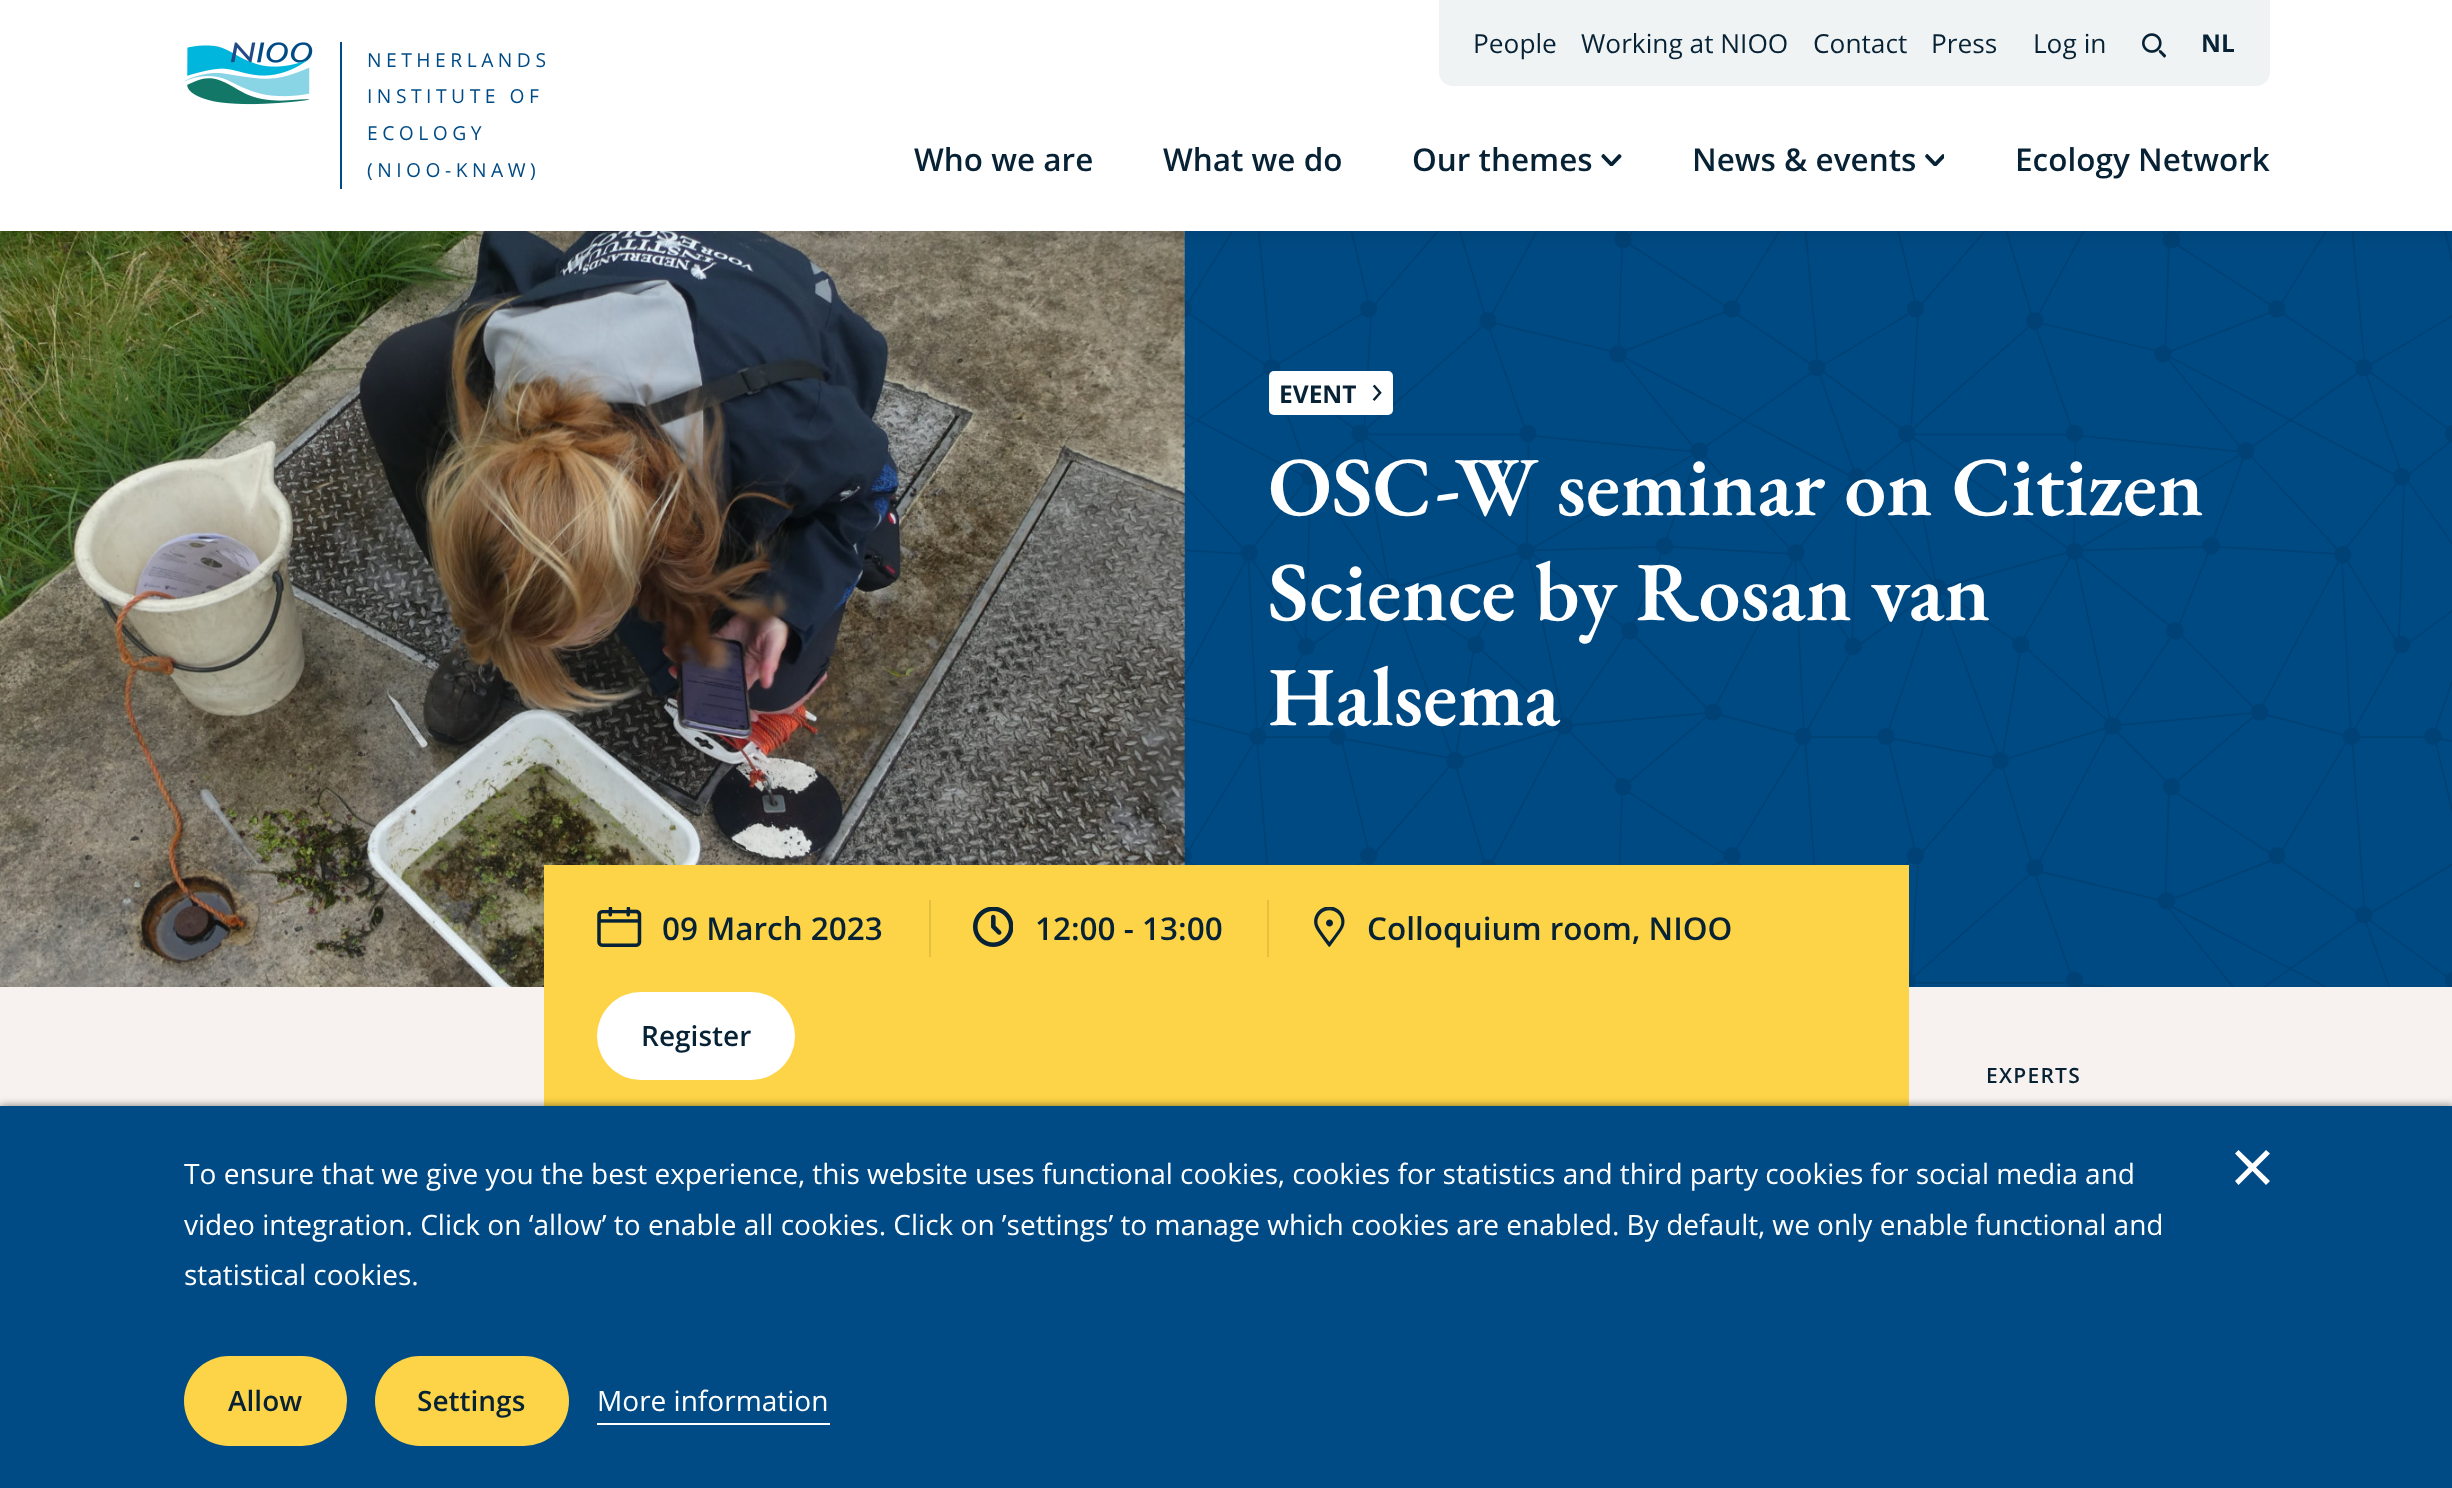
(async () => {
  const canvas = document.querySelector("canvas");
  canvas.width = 2452;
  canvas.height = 1488;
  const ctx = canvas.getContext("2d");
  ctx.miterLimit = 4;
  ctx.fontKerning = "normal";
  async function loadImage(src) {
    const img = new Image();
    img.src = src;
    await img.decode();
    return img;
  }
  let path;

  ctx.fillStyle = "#f7f2ef";
  ctx.fillRect(0, 0, 2452, 1488);
  ctx.fillStyle = "#004a83";
  ctx.fillRect(1184, 231, 1268, 756);
  ctx.drawImage(await loadImage("img/5.png"), 1184, 231, 1268, 756);
  ctx.drawImage(await loadImage("img/6.png"), 0, 231, 1185, 756);
  ctx.fillStyle = "rgba(0, 0, 0, 0.06)";
  ctx.filter = "blur(7px)";
  ctx.beginPath();
  ctx.rect(0, 9, 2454, 231);
  ctx.fill();
  ctx.filter = "none";
  ctx.fillStyle = "#ffffff";
  ctx.fillRect(0, 0, 2452, 231);
  ctx.drawImage(await loadImage("img/1.png"), 184, 42, 129, 63);
  ctx.fillStyle = "#004b85";
  ctx.fillRect(340, 42, 2, 147);
  ctx.fillStyle = "#eff3f4";
  ctx.beginPath();
  ctx.roundRect(1439, 0, 831, 86, [0, 0, 14, 14]);
  ctx.fill();
  ctx.drawImage(await loadImage("img/2.png"), 2142, 33, 24, 25);
  ctx.drawImage(await loadImage("img/3.png"), 1601, 154, 21, 12);
  ctx.drawImage(await loadImage("img/4.png"), 1925, 154, 19, 12);
  ctx.fillStyle = "#ffffff";
  ctx.beginPath();
  ctx.roundRect(1269, 371, 124, 44, 5);
  ctx.fill();
  ctx.drawImage(await loadImage("img/7.png"), 1372, 384, 10, 17);
  ctx.fillStyle = "#fdd447";
  ctx.fillRect(544, 865, 1365, 241);
  ctx.fillStyle = "#e4bf40";
  ctx.fillRect(929, 900, 2, 57);
  ctx.drawImage(await loadImage("img/8.png"), 597, 907, 45, 40);
  ctx.fillRect(1267, 900, 2, 57);
  ctx.drawImage(await loadImage("img/9.png"), 973, 907, 40, 40);
  ctx.drawImage(await loadImage("img/10.png"), 1314, 907, 31, 40);
  ctx.fillStyle = "#ffffff";
  ctx.beginPath();
  ctx.roundRect(597, 992, 198, 88, 44);
  ctx.fill();
  ctx.fillStyle = "rgba(0, 0, 0, 0.5)";
  ctx.filter = "blur(4.5px)";
  ctx.beginPath();
  ctx.rect(0, 1106, 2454, 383);
  ctx.fill();
  ctx.filter = "none";
  ctx.fillStyle = "#004b85";
  ctx.fillRect(0, 1106, 2452, 382);
  ctx.fillStyle = "#ffffff";
  path = new Path2D("M2270 1153.5L2266 1150L2252.5 1163.5L2238.5 1150L2235 1153.5L2248.5 1167.5L2235 1181L2238.5 1185L2252.5 1171L2266 1185L2270 1181L2256 1167.5Z");
  ctx.fill(path);
  ctx.fillStyle = "#fdd447";
  ctx.beginPath();
  ctx.roundRect(184, 1356, 163, 90, 45);
  ctx.fill();
  ctx.beginPath();
  ctx.roundRect(375, 1356, 194, 90, 45);
  ctx.fill();
  ctx.fillStyle = "#ffffff";
  ctx.fillRect(597, 1423, 233, 2);
  ctx.letterSpacing = "4.5px";
  ctx.font = "19.25px Open Sans";
  ctx.fillStyle = "#004b85";
  for (const [text, x, y] of [
    ["NETHERLANDS", 367, 67],
    ["INSTITUTE OF", 367, 103],
    ["ECOLOGY", 367, 140],
    ["(NIOO-KNAW)", 367, 177],
  ]) {
    ctx.fillText(text, x, y);
  }
  ctx.letterSpacing = "0px";
  ctx.font = "26.25px Open Sans";
  ctx.fillStyle = "#082235";
  for (const [text, x, y] of [
    ["People", 1473, 53],
    ["Working at NIOO", 1581, 53],
    ["Contact", 1813, 53],
    ["Press", 1931, 53],
    ["Log in", 2033, 53],
  ]) {
    ctx.fillText(text, x, y);
  }
  ctx.font = "bold 24.5px Open Sans";
  ctx.fillText("NL", 2201, 52);
  ctx.font = "600 31.5px Open Sans";
  for (const [text, x, y] of [
    ["Who we are", 914, 171],
    ["What we do", 1163, 171],
    ["Our themes", 1412, 171],
    ["News & events", 1692, 171],
    ["Ecology Network", 2015, 171],
  ]) {
    ctx.fillText(text, x, y);
  }
  ctx.font = "bold 24.5px Open Sans";
  ctx.fillText("EVENT", 1279, 403);
  ctx.font = "600 84px EB Garamond";
  ctx.fillStyle = "#ffffff";
  for (const [text, x, y] of [
    ["OSC-W seminar on Citizen", 1268, 515],
    ["Science by Rosan van", 1268, 620],
    ["Halsema", 1268, 725],
  ]) {
    ctx.fillText(text, x, y);
  }
  ctx.font = "600 31.5px Open Sans";
  ctx.fillStyle = "#082235";
  for (const [text, x, y] of [
    ["09 March 2023", 662, 940],
    ["12:00 - 13:00", 1035, 940],
    ["Colloquium room, NIOO", 1367, 940],
  ]) {
    ctx.fillText(text, x, y);
  }
  ctx.font = "600 28px Open Sans";
  ctx.fillText("Register", 641, 1046);
  ctx.letterSpacing = "1.25px";
  ctx.font = "600 21px Open Sans";
  ctx.fillText("EXPERTS", 1986, 1083);
  ctx.letterSpacing = "0px";
  ctx.font = "28px Open Sans";
  ctx.fillStyle = "#ffffff";
  for (const [text, x, y] of [
    ["To ensure that we give you the best experience, this website uses functional cookies, cookies for statistics and third party cookies for social media and", 184, 1184],
    ["video integration. Click on ‘allow’ to enable all cookies. Click on ’settings’ to manage which cookies are enabled. By default, we only enable functional and", 184, 1235],
    ["statistical cookies.", 184, 1285],
  ]) {
    ctx.fillText(text, x, y);
  }
  ctx.font = "600 28px Open Sans";
  ctx.fillStyle = "#082235";
  ctx.fillText("Allow", 228, 1411);
  ctx.fillText("Settings", 417, 1411);
  ctx.font = "28px Open Sans";
  ctx.fillStyle = "#ffffff";
  ctx.fillText("More information", 597, 1411);
})();
